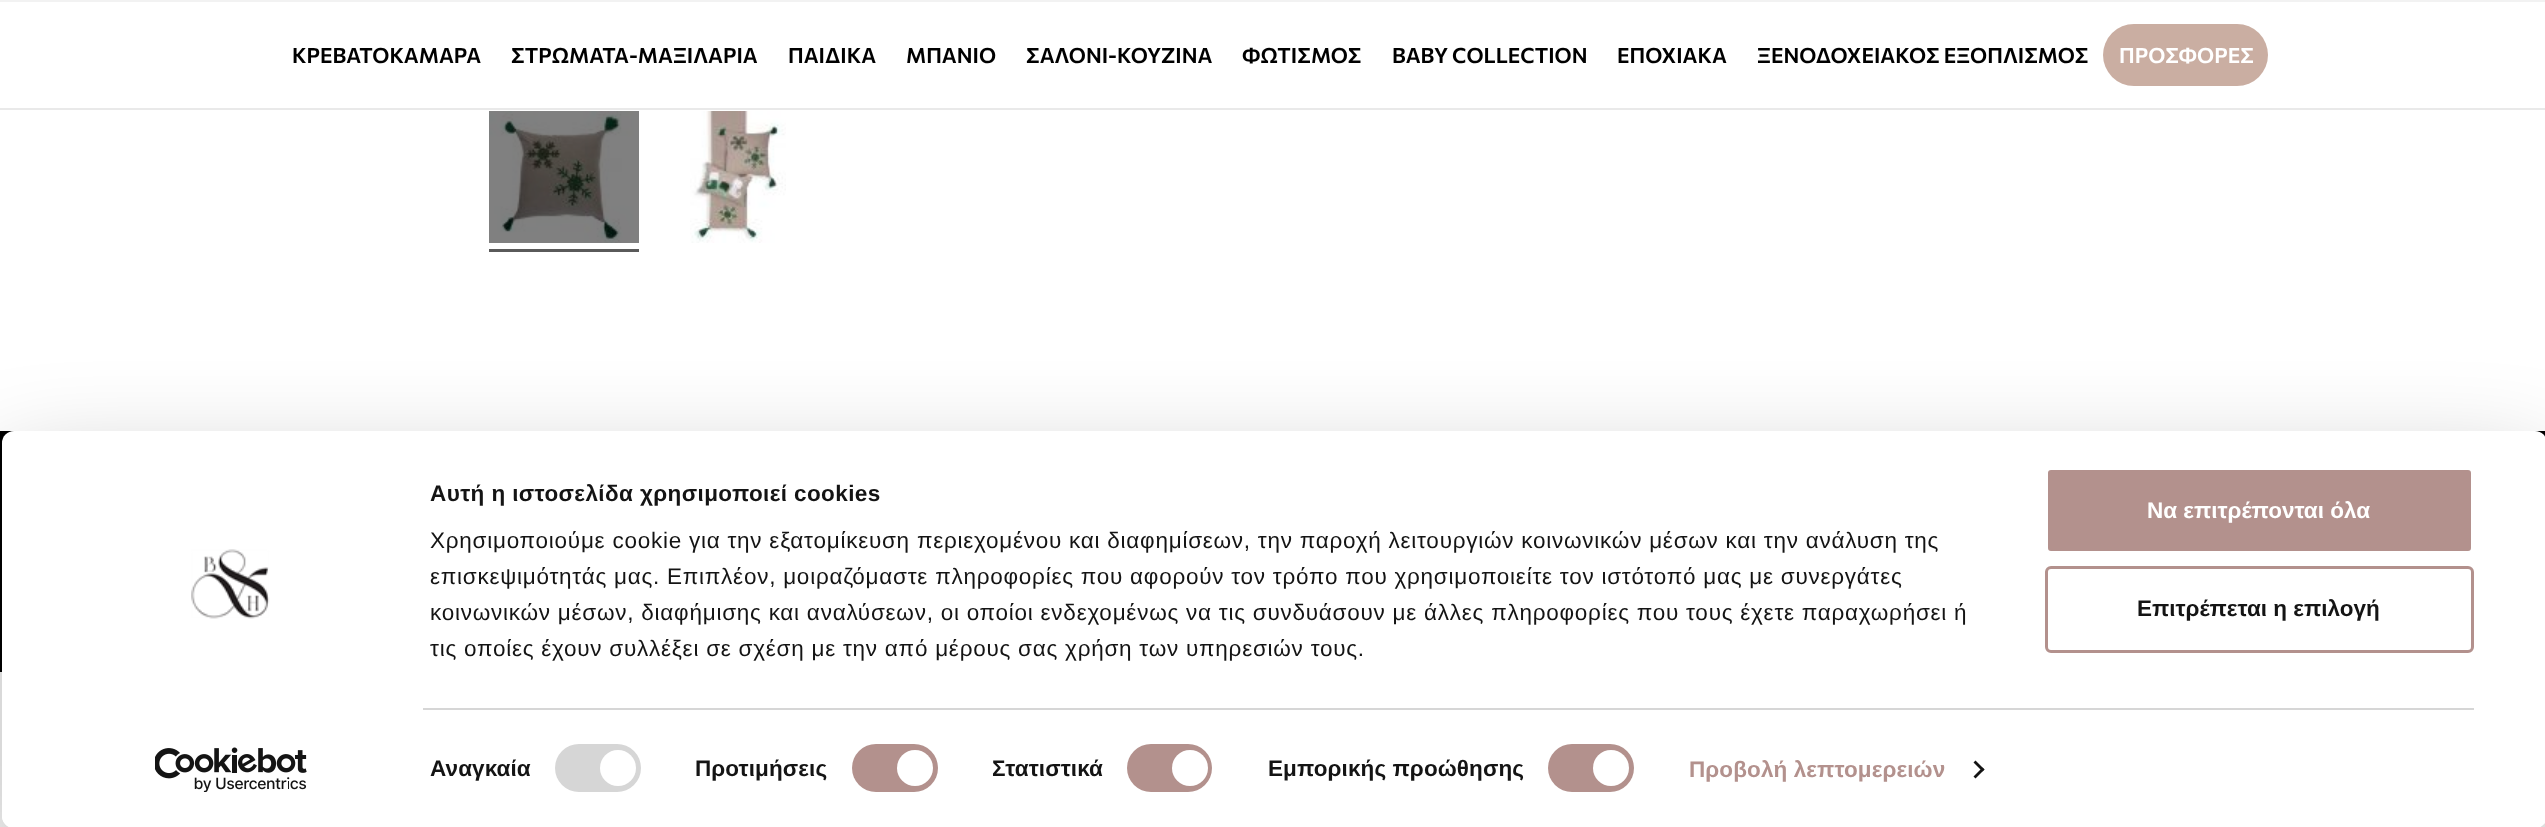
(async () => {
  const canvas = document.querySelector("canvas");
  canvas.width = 2545;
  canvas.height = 827;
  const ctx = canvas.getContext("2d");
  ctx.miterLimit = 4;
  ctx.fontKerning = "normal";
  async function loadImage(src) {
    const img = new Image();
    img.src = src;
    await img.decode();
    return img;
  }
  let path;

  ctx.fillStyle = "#ffffff";
  ctx.fillRect(0, 0, 2545, 827);
  ctx.fillStyle = "#e9e9e9";
  ctx.fillRect(0, 108, 2545, 2);
  ctx.fillStyle = "#f2f2f2";
  ctx.fillRect(0, 0, 2545, 2);
  ctx.fillStyle = "#caaea2";
  ctx.beginPath();
  ctx.roundRect(2103, 24, 165, 62, 31);
  ctx.fill();
  ctx.drawImage(await loadImage("img/1.png"), 489, 111, 150, 132);
  ctx.fillStyle = "#5a5a5a";
  ctx.fillRect(489, 249, 150, 3);
  ctx.drawImage(await loadImage("img/2.png"), 690, 111, 96, 132);
  ctx.fillStyle = "#000000";
  ctx.fillRect(0, 431, 2545, 241);
  ctx.save();
  path = new Path2D("M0 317H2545V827H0ZM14 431H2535C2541.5 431 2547 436.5 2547 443V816C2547 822.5 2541.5 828 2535 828H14C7.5 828 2 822.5 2 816V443C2 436.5 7.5 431 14 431Z");
  ctx.clip(path, "evenodd");
  ctx.fillStyle = "rgba(0, 0, 0, 0.3)";
  ctx.filter = "blur(52.5px)";
  ctx.beginPath();
  ctx.roundRect(2, 476, 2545, 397, 12);
  ctx.fill();
  ctx.filter = "none";
  ctx.restore();
  ctx.fillStyle = "#ffffff";
  ctx.beginPath();
  ctx.roundRect(2, 431, 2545, 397, 12);
  ctx.fill();
  ctx.drawImage(await loadImage("img/3.png"), 191, 549, 79, 70);
  ctx.drawImage(await loadImage("img/4.png"), 155, 747, 152, 45);
  ctx.fillStyle = "#d6d6d6";
  ctx.fillRect(423, 708, 2051, 2);
  ctx.beginPath();
  ctx.roundRect(555, 744, 86, 48, 24);
  ctx.fill();
  ctx.fillStyle = "#ffffff";
  ctx.beginPath();
  ctx.arc(618, 768, 18, 0, Math.PI * 2);
  ctx.fill();
  ctx.fillStyle = "#b3918d";
  ctx.beginPath();
  ctx.roundRect(852, 744, 86, 48, 24);
  ctx.fill();
  ctx.fillStyle = "#ffffff";
  ctx.beginPath();
  ctx.arc(915, 768, 18, 0, Math.PI * 2);
  ctx.fill();
  ctx.fillStyle = "#b3918d";
  ctx.beginPath();
  ctx.roundRect(1127, 744, 85, 48, 24);
  ctx.fill();
  ctx.fillStyle = "#ffffff";
  ctx.beginPath();
  ctx.arc(1190, 768, 18, 0, Math.PI * 2);
  ctx.fill();
  ctx.fillStyle = "#b3918d";
  ctx.beginPath();
  ctx.roundRect(1548, 744, 86, 48, 24);
  ctx.fill();
  ctx.fillStyle = "#ffffff";
  ctx.beginPath();
  ctx.arc(1611, 768, 18, 0, Math.PI * 2);
  ctx.fill();
  ctx.fillStyle = "#141414";
  path = new Path2D("M1975.5 760.5L1984.5 769.5L1982.5 771.5L1973.5 762.5Z");
  ctx.fill(path);
  path = new Path2D("M1982.5 767.5L1984.5 769.5L1975.5 778.5L1973.5 776.5Z");
  ctx.fill(path);
  ctx.fillStyle = "#b3918d";
  ctx.beginPath();
  ctx.roundRect(2046.5, 468.5, 426, 84, 4.5);
  ctx.fill();
  ctx.strokeStyle = "#ffffff";
  ctx.lineWidth = 3;
  ctx.stroke();
  ctx.beginPath();
  ctx.roundRect(2046.5, 567.5, 426, 84, 4.5);
  ctx.strokeStyle = "#b3918d";
  ctx.stroke();
  ctx.font = "600 21px Commissioner";
  ctx.fillStyle = "#000000";
  for (const [text, x, y] of [
    ["ΚΡΕΒΑΤΟΚΑΜΑΡΑ", 292, 63],
    ["ΣΤΡΩΜΑΤΑ-ΜΑΞΙΛΑΡΙΑ", 511, 63],
    ["ΠΑΙΔΙΚΑ", 788, 63],
    ["ΜΠΑΝΙΟ", 906, 63],
    ["ΣΑΛΟΝΙ-ΚΟΥΖΙΝΑ", 1026, 63],
    ["ΦΩΤΙΣΜΟΣ", 1242, 63],
    ["BABY COLLECTION", 1392, 63],
    ["ΕΠΟΧΙΑΚΑ", 1617, 63],
    ["ΞΕΝΟΔΟΧΕΙΑΚΟΣ ΕΞΟΠΛΙΣΜΟΣ", 1757, 63],
  ]) {
    ctx.fillText(text, x, y);
  }
  ctx.fillStyle = "#ffffff";
  ctx.fillText("ΠΡΟΣΦΟΡΕΣ", 2119, 63);
  ctx.letterSpacing = "0.4px";
  ctx.font = "bold 22.5px Liberation Sans";
  ctx.fillStyle = "#141414";
  ctx.fillText("Αυτή η ιστοσελίδα χρησιμοποιεί cookies", 430, 501);
  ctx.letterSpacing = "0.75px";
  ctx.font = "22.5px Liberation Sans";
  for (const [text, x, y] of [
    ["Χρησιμοποιούμε cookie για την εξατομίκευση περιεχομένου και διαφημίσεων, την παροχή λειτουργιών κοινωνικών μέσων και την ανάλυση της", 430, 548],
    ["επισκεψιμότητάς μας. Επιπλέον, μοιραζόμαστε πληροφορίες που αφορούν τον τρόπο που χρησιμοποιείτε τον ιστότοπό μας με συνεργάτες", 430, 584],
    ["κοινωνικών μέσων, διαφήμισης και αναλύσεων, οι οποίοι ενδεχομένως να τις συνδυάσουν με άλλες πληροφορίες που τους έχετε παραχωρήσει ή", 430, 620],
    ["τις οποίες έχουν συλλέξει σε σχέση με την από μέρους σας χρήση των υπηρεσιών τους.", 430, 656],
  ]) {
    ctx.fillText(text, x, y);
  }
  ctx.letterSpacing = "0.1px";
  ctx.font = "bold 22.5px Liberation Sans";
  for (const [text, x, y] of [
    ["Αναγκαία", 430, 776],
    ["Προτιμήσεις", 695, 776],
    ["Στατιστικά", 992, 776],
    ["Εμπορικής προώθησης", 1268, 776],
  ]) {
    ctx.fillText(text, x, y);
  }
  ctx.fillStyle = "#b3918d";
  ctx.fillText("Προβολή λεπτομερειών", 1689, 777);
  ctx.letterSpacing = "0px";
  ctx.fillStyle = "#ffffff";
  ctx.fillText("Να επιτρέπονται όλα", 2147, 518);
  ctx.fillStyle = "#141414";
  ctx.fillText("Επιτρέπεται η επιλογή", 2137, 616);
})();
